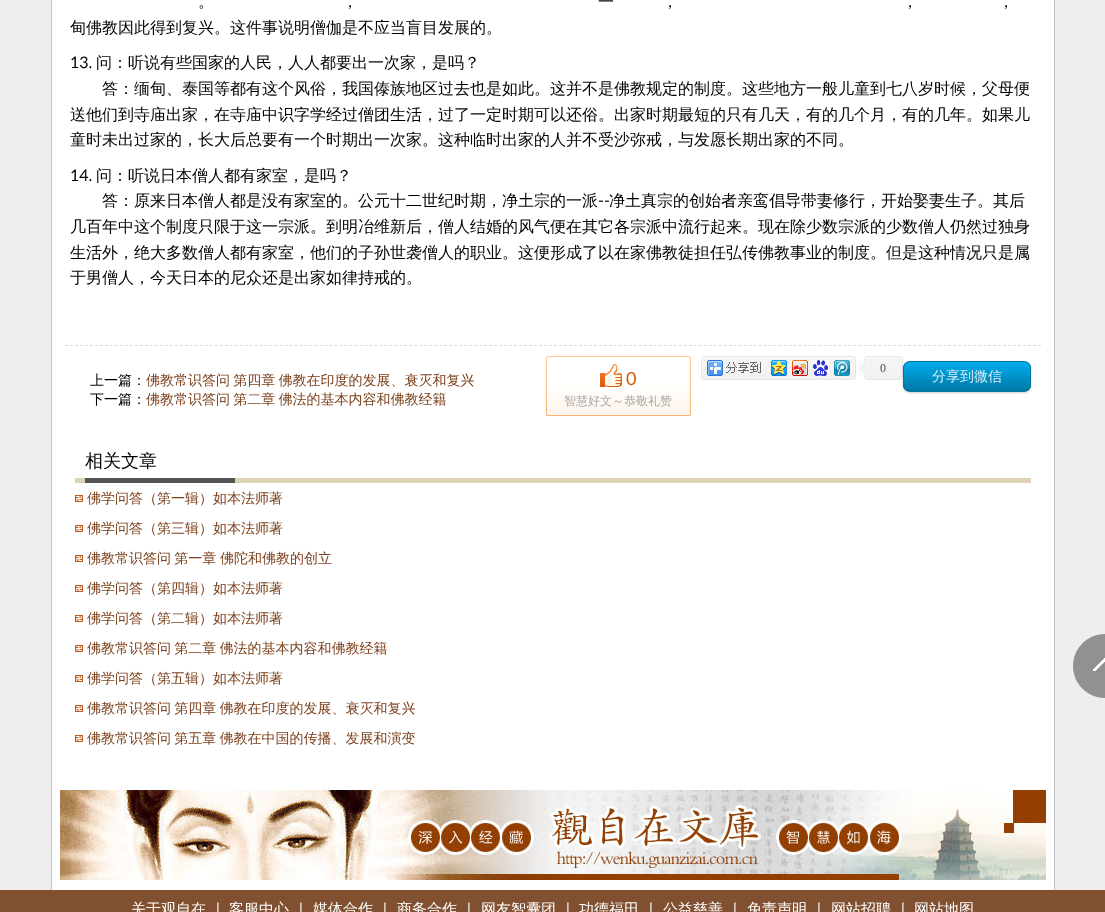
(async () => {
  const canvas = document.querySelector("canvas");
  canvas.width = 1105;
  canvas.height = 912;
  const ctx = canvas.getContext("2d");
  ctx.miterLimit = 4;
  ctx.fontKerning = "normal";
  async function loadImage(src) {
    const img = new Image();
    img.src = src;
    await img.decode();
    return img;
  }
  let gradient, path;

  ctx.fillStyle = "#eeeeee";
  ctx.fillRect(0, 0, 1105, 912);
  ctx.fillStyle = "rgba(75, 75, 75, 0.25)";
  ctx.filter = "blur(0.5px)";
  ctx.beginPath();
  ctx.rect(51, -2, 1004, 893);
  ctx.fill();
  ctx.filter = "none";
  ctx.fillStyle = "#ffffff";
  ctx.fillRect(52, 0, 1002, 890);
  path = new Path2D("M65 345.5H1041");
  ctx.strokeStyle = "#dddddd";
  ctx.setLineDash([3, 1.99]);
  ctx.stroke(path);
  ctx.drawImage(await loadImage("img/1.png"), 546, 356, 145, 60);
  ctx.drawImage(await loadImage("img/2.png"), 600, 364, 22, 23);
  ctx.drawImage(await loadImage("img/3.png"), 701, 356, 155, 24);
  ctx.drawImage(await loadImage("img/4.png"), 859, 356, 44, 24);
  ctx.fillStyle = "rgba(0, 0, 0, 0.2)";
  ctx.filter = "blur(1px)";
  ctx.beginPath();
  ctx.roundRect(903, 362, 128, 31, 7);
  ctx.fill();
  ctx.filter = "none";
  ctx.save();
  ctx.beginPath();
  ctx.roundRect(903, 361, 128, 31, 7);
  ctx.clip();
  gradient = ctx.createLinearGradient(904, 362, 904, 391);
  gradient.addColorStop(0, "#00adee");
  gradient.addColorStop(1, "#0078a5");
  ctx.fillStyle = gradient;
  ctx.fillRect(903, 362, 128, 29);
  ctx.restore();
  ctx.beginPath();
  ctx.roundRect(903.5, 361.5, 127, 30, 6.5);
  ctx.strokeStyle = "#0076a3";
  ctx.setLineDash([]);
  ctx.stroke();
  ctx.fillStyle = "#ded2b7";
  ctx.fillRect(75, 478, 956, 5);
  ctx.fillStyle = "#555555";
  ctx.fillRect(85, 478, 150, 5);
  ctx.drawImage(await loadImage("img/5.png"), 75, 495, 8, 7);
  ctx.drawImage(await loadImage("img/5.png"), 75, 525, 8, 7);
  ctx.drawImage(await loadImage("img/5.png"), 75, 555, 8, 7);
  ctx.drawImage(await loadImage("img/5.png"), 75, 585, 8, 7);
  ctx.drawImage(await loadImage("img/5.png"), 75, 615, 8, 7);
  ctx.drawImage(await loadImage("img/5.png"), 75, 645, 8, 7);
  ctx.drawImage(await loadImage("img/5.png"), 75, 675, 8, 7);
  ctx.drawImage(await loadImage("img/5.png"), 75, 705, 8, 7);
  ctx.drawImage(await loadImage("img/5.png"), 75, 735, 8, 7);
  ctx.drawImage(await loadImage("img/6.png"), 60, 790, 986, 90);
  ctx.drawImage(await loadImage("img/7.png"), 1073, 634, 32, 64);
  ctx.fillStyle = "#805031";
  ctx.fillRect(0, 890, 1105, 22);
  ctx.font = "500 16px WenQuanYi Zen Hei";
  ctx.fillStyle = "#000000";
  for (const [text, x, y] of [
    ["一", 598, 7],
    ["。", 198, 7],
    ["，", 342, 7],
    ["，", 662, 7],
    ["，", 902, 7],
    ["，", 998, 7],
    ["甸佛教因此得到复兴。这件事说明僧伽是不应当盲目发展的。", 70, 33],
  ]) {
    ctx.fillText(text, x, y);
  }
  ctx.font = "16px Lato";
  ctx.fillText("13.", 70, 68);
  ctx.font = "500 16px WenQuanYi Zen Hei";
  for (const [text, x, y] of [
    ["问：听说有些国家的人民，人人都要出一次家，是吗？", 96, 68],
    ["答：缅甸、泰国等都有这个风俗，我国傣族地区过去也是如此。这并不是佛教规定的制度。这些地方一般儿童到七八岁时候，父母便", 102, 94],
    ["送他们到寺庙出家，在寺庙中识字学经过僧团生活，过了一定时期可以还俗。出家时期最短的只有几天，有的几个月，有的几年。如果儿", 70, 120],
    ["童时未出过家的，长大后总要有一个时期出一次家。这种临时出家的人并不受沙弥戒，与发愿长期出家的不同。", 70, 145],
  ]) {
    ctx.fillText(text, x, y);
  }
  ctx.font = "16px Lato";
  ctx.fillText("14.", 70, 181);
  ctx.font = "500 16px WenQuanYi Zen Hei";
  ctx.fillText("问：听说日本僧人都有家室，是吗？", 96, 181);
  ctx.fillText("答：原来日本僧人都是没有家室的。公元十二世纪时期，净土宗的一派", 102, 206);
  ctx.font = "16px Lato";
  ctx.fillText("--", 598, 206);
  ctx.font = "500 16px WenQuanYi Zen Hei";
  for (const [text, x, y] of [
    ["净土真宗的创始者亲鸾倡导带妻修行，开始娶妻生子。其后", 609, 206],
    ["几百年中这个制度只限于这一宗派。到明冶维新后，僧人结婚的风气便在其它各宗派中流行起来。现在除少数宗派的少数僧人仍然过独身", 70, 232],
    ["生活外，绝大多数僧人都有家室，他们的子孙世袭僧人的职业。这便形成了以在家佛教徒担任弘传佛教事业的制度。但是这种情况只是属", 70, 258],
    ["于男僧人，今天日本的尼众还是出家如律持戒的。", 70, 283],
  ]) {
    ctx.fillText(text, x, y);
  }
  ctx.font = "500 14px WenQuanYi Zen Hei";
  ctx.fillText("上一篇：", 90, 385);
  ctx.wordSpacing = "-1px";
  ctx.fillStyle = "#7c411c";
  ctx.fillText("佛教常识答问 第四章 佛教在印度的发展、衰灭和复兴", 146, 385);
  ctx.wordSpacing = "0px";
  ctx.fillStyle = "#000000";
  ctx.fillText("下一篇：", 90, 404);
  ctx.wordSpacing = "-1px";
  ctx.fillStyle = "#7c411c";
  ctx.fillText("佛教常识答问 第二章 佛法的基本内容和佛教经籍", 146, 404);
  ctx.wordSpacing = "0px";
  ctx.font = "18px Lato";
  ctx.fillStyle = "#d25806";
  ctx.fillText("0", 626, 385);
  ctx.font = "500 12px WenQuanYi Zen Hei";
  ctx.fillStyle = "#a9a9a9";
  ctx.fillText("智慧好文～恭敬礼赞", 564, 405);
  ctx.font = "12px Liberation Serif";
  ctx.fillStyle = "#454545";
  ctx.fillText("0", 880, 372);
  ctx.font = "500 14px WenQuanYi Zen Hei";
  ctx.fillStyle = "#d9eef7";
  ctx.fillText("分享到微信", 932, 381);
  ctx.font = "500 18px WenQuanYi Zen Hei";
  ctx.fillStyle = "#000000";
  ctx.fillText("相关文章", 85, 467);
  ctx.font = "500 14px WenQuanYi Zen Hei";
  ctx.fillStyle = "#7c411c";
  ctx.fillText("佛学问答（第一辑）如本法师著", 87, 503);
  ctx.fillText("佛学问答（第三辑）如本法师著", 87, 533);
  ctx.wordSpacing = "-1px";
  ctx.fillText("佛教常识答问 第一章", 87, 563);
  ctx.wordSpacing = "0px";
  for (const [text, x, y] of [
    ["佛陀和佛教的创立", 220, 563],
    ["佛学问答（第四辑）如本法师著", 87, 593],
    ["佛学问答（第二辑）如本法师著", 87, 623],
  ]) {
    ctx.fillText(text, x, y);
  }
  ctx.wordSpacing = "-1px";
  ctx.fillText("佛教常识答问 第二章 佛法的基本内容和佛教经籍", 87, 653);
  ctx.wordSpacing = "0px";
  ctx.fillText("佛学问答（第五辑）如本法师著", 87, 683);
  ctx.wordSpacing = "-1px";
  ctx.fillText("佛教常识答问 第四章 佛教在印度的发展、衰灭和复兴", 87, 713);
  ctx.fillText("佛教常识答问 第五章 佛教在中国的传播、发展和演变", 87, 743);
  ctx.wordSpacing = "0px";
  ctx.font = "500 15px WenQuanYi Zen Hei";
  ctx.fillStyle = "#ffffff";
  ctx.fillText("关于观自在", 131, 914);
  ctx.font = "15px Lato";
  ctx.fillText("|", 216, 914);
  ctx.font = "500 15px WenQuanYi Zen Hei";
  ctx.fillText("客服中心", 229, 914);
  ctx.font = "15px Lato";
  ctx.fillText("|", 299, 914);
  ctx.font = "500 15px WenQuanYi Zen Hei";
  ctx.fillText("媒体合作", 313, 914);
  ctx.font = "15px Lato";
  ctx.fillText("|", 383, 914);
  ctx.font = "500 15px WenQuanYi Zen Hei";
  ctx.fillText("商务合作", 397, 914);
  ctx.font = "15px Lato";
  ctx.fillText("|", 467, 914);
  ctx.font = "500 15px WenQuanYi Zen Hei";
  ctx.fillText("网友智囊团", 481, 914);
  ctx.font = "15px Lato";
  ctx.fillText("|", 566, 914);
  ctx.font = "500 15px WenQuanYi Zen Hei";
  ctx.fillText("功德福田", 579, 914);
  ctx.font = "15px Lato";
  ctx.fillText("|", 649, 914);
  ctx.font = "500 15px WenQuanYi Zen Hei";
  ctx.fillText("公益慈善", 663, 914);
  ctx.font = "15px Lato";
  ctx.fillText("|", 733, 914);
  ctx.font = "500 15px WenQuanYi Zen Hei";
  ctx.fillText("免责声明", 747, 914);
  ctx.font = "15px Lato";
  ctx.fillText("|", 817, 914);
  ctx.font = "500 15px WenQuanYi Zen Hei";
  ctx.fillText("网站招聘", 831, 914);
  ctx.font = "15px Lato";
  ctx.fillText("|", 901, 914);
  ctx.font = "500 15px WenQuanYi Zen Hei";
  ctx.fillText("网站地图", 914, 914);
})();
